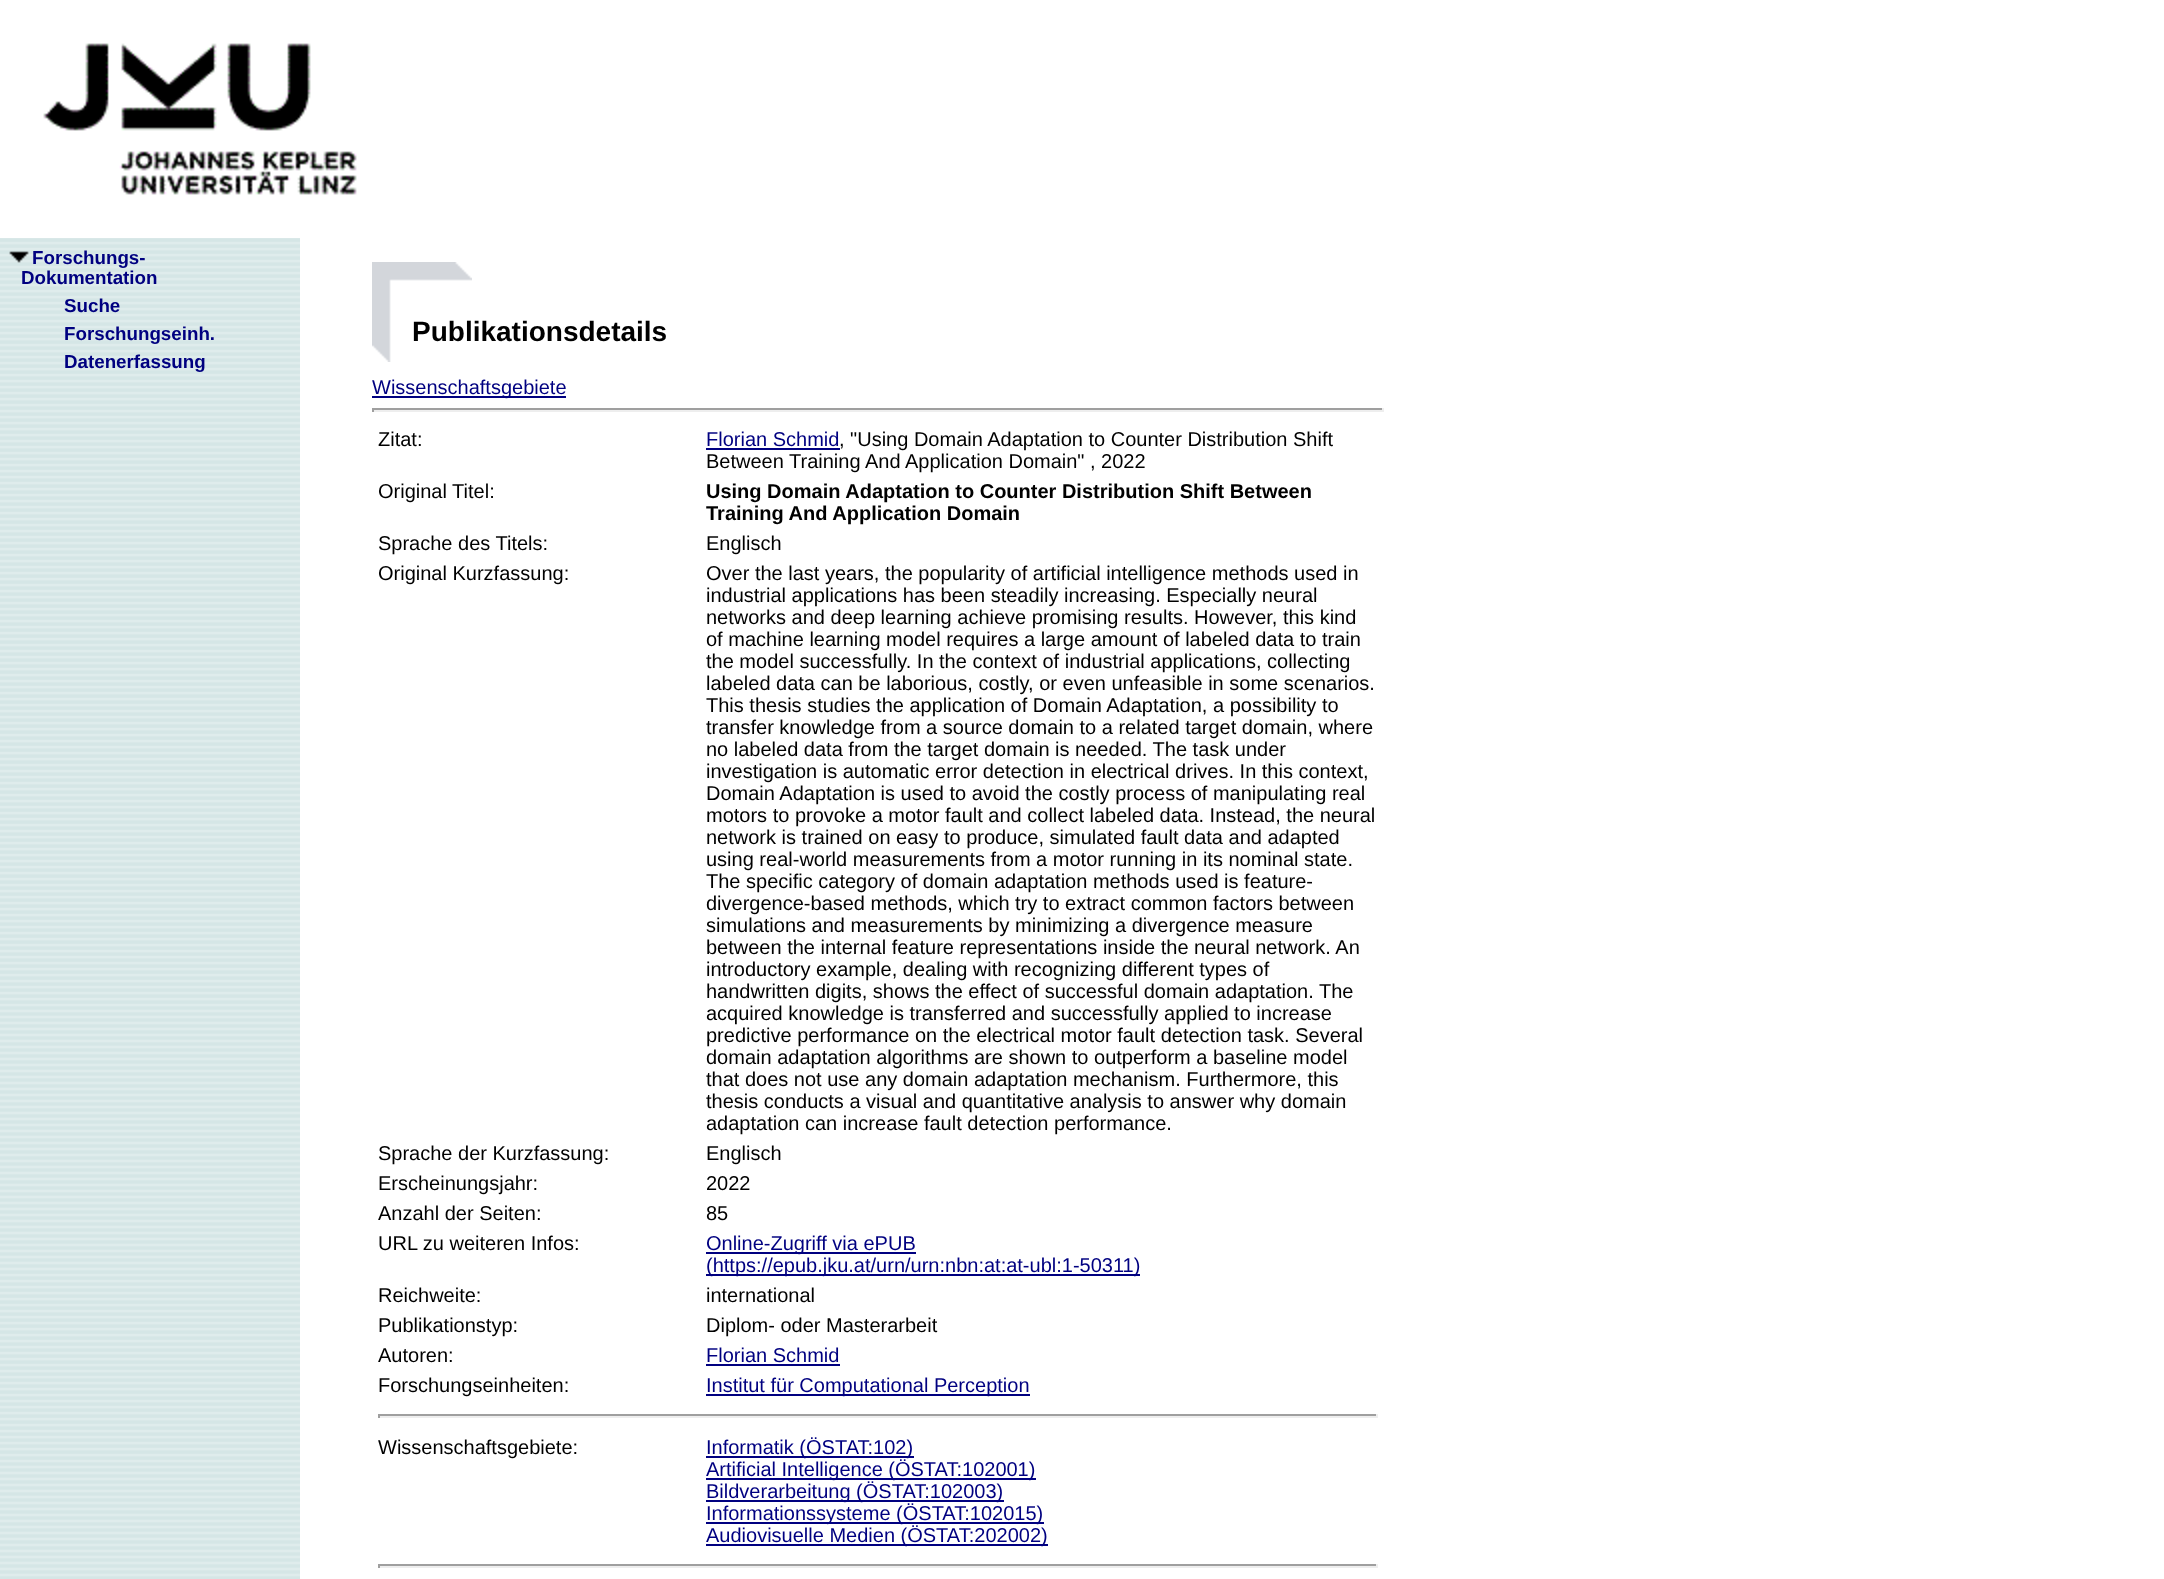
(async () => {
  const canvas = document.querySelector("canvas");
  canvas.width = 2164;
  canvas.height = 1579;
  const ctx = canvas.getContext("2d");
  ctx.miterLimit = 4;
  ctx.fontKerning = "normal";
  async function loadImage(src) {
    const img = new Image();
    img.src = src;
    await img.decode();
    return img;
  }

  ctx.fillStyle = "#ffffff";
  ctx.fillRect(0, 0, 2164, 1579);
  ctx.drawImage(await loadImage("img/1.png"), 43, 43, 314, 152);
  ctx.drawImage(await loadImage("img/2.png"), 0, 238, 300, 1341);
  ctx.drawImage(await loadImage("img/3.png"), 9, 251, 20, 12);
  ctx.drawImage(await loadImage("img/4.png"), 372, 262, 100, 100);
  for (const [x, y, w, h, color] of [
    [372, 396, 194, 2, "#000080"],
    [372, 408, 1012, 2, "#9f9f9f"],
    [1382, 408, 2, 4, "#eeeeee"],
    [372, 410, 1012, 2, "#eeeeee"],
    [372, 408, 2, 4, "#9f9f9f"],
    [706, 448, 134, 2, "#000080"],
    [706, 1252, 210, 2, "#000080"],
    [706, 1274, 434, 2, "#000080"],
    [706, 1364, 134, 2, "#000080"],
    [706, 1394, 324, 2, "#000080"],
    [378, 1414, 1000, 2, "#9f9f9f"],
    [1376, 1414, 2, 4, "#eeeeee"],
    [378, 1416, 1000, 2, "#eeeeee"],
    [378, 1414, 2, 4, "#9f9f9f"],
    [706, 1456, 208, 2, "#000080"],
    [706, 1478, 330, 2, "#000080"],
    [706, 1500, 298, 2, "#000080"],
    [706, 1522, 338, 2, "#000080"],
    [706, 1544, 342, 2, "#000080"],
    [378, 1564, 1000, 2, "#9f9f9f"],
    [1376, 1564, 2, 4, "#eeeeee"],
    [378, 1566, 1000, 2, "#eeeeee"],
    [378, 1564, 2, 4, "#9f9f9f"],
  ]) {
    ctx.fillStyle = color;
    ctx.fillRect(x, y, w, h);
  }
  ctx.font = "bold 18.75px Liberation Sans";
  ctx.fillStyle = "#000080";
  for (const [text, x, y] of [
    ["Forschungs-", 32, 264],
    ["Dokumentation", 21, 284],
    ["Suche", 64, 312],
    ["Forschungseinh.", 64, 340],
    ["Datenerfassung", 64, 368],
  ]) {
    ctx.fillText(text, x, y);
  }
  ctx.font = "bold 28px Liberation Sans";
  ctx.fillStyle = "#000000";
  ctx.fillText("Publikationsdetails", 412, 341);
  ctx.font = "20px Liberation Sans";
  ctx.fillStyle = "#000080";
  ctx.fillText("Wissenschaftsgebiete", 372, 394);
  ctx.fillStyle = "#000000";
  ctx.fillText("Zitat:", 378, 446);
  ctx.fillStyle = "#000080";
  ctx.fillText("Florian Schmid", 706, 446);
  ctx.fillStyle = "#000000";
  for (const [text, x, y] of [
    [", \"Using Domain Adaptation to Counter Distribution Shift", 839, 446],
    ["Between Training And Application Domain\" , 2022", 706, 468],
    ["Original Titel:", 378, 498],
  ]) {
    ctx.fillText(text, x, y);
  }
  ctx.font = "bold 20px Liberation Sans";
  ctx.fillText("Using Domain Adaptation to Counter Distribution Shift Between", 706, 498);
  ctx.fillText("Training And Application Domain", 706, 520);
  ctx.font = "20px Liberation Sans";
  for (const [text, x, y] of [
    ["Sprache des Titels:", 378, 550],
    ["Englisch", 706, 550],
    ["Original Kurzfassung:", 378, 580],
    ["Over the last years, the popularity of artificial intelligence methods used in", 706, 580],
    ["industrial applications has been steadily increasing. Especially neural", 706, 602],
    ["networks and deep learning achieve promising results. However, this kind", 706, 624],
    ["of machine learning model requires a large amount of labeled data to train", 706, 646],
    ["the model successfully. In the context of industrial applications, collecting", 706, 668],
    ["labeled data can be laborious, costly, or even unfeasible in some scenarios.", 706, 690],
    ["This thesis studies the application of Domain Adaptation, a possibility to", 706, 712],
    ["transfer knowledge from a source domain to a related target domain, where", 706, 734],
    ["no labeled data from the target domain is needed. The task under", 706, 756],
    ["investigation is automatic error detection in electrical drives. In this context,", 706, 778],
    ["Domain Adaptation is used to avoid the costly process of manipulating real", 706, 800],
    ["motors to provoke a motor fault and collect labeled data. Instead, the neural", 706, 822],
    ["network is trained on easy to produce, simulated fault data and adapted", 706, 844],
    ["using real-world measurements from a motor running in its nominal state.", 706, 866],
    ["The specific category of domain adaptation methods used is feature-", 706, 888],
    ["divergence-based methods, which try to extract common factors between", 706, 910],
    ["simulations and measurements by minimizing a divergence measure", 706, 932],
    ["between the internal feature representations inside the neural network. An", 706, 954],
    ["introductory example, dealing with recognizing different types of", 706, 976],
    ["handwritten digits, shows the effect of successful domain adaptation. The", 706, 998],
    ["acquired knowledge is transferred and successfully applied to increase", 706, 1020],
    ["predictive performance on the electrical motor fault detection task. Several", 706, 1042],
    ["domain adaptation algorithms are shown to outperform a baseline model", 706, 1064],
    ["that does not use any domain adaptation mechanism. Furthermore, this", 706, 1086],
    ["thesis conducts a visual and quantitative analysis to answer why domain", 706, 1108],
    ["adaptation can increase fault detection performance.", 706, 1130],
    ["Sprache der Kurzfassung:", 378, 1160],
    ["Englisch", 706, 1160],
    ["Erscheinungsjahr:", 378, 1190],
    ["2022", 706, 1190],
    ["Anzahl der Seiten:", 378, 1220],
    ["85", 706, 1220],
    ["URL zu weiteren Infos:", 378, 1250],
  ]) {
    ctx.fillText(text, x, y);
  }
  ctx.fillStyle = "#000080";
  ctx.fillText("Online-Zugriff via ePUB", 706, 1250);
  ctx.fillText("(https://epub.jku.at/urn/urn:nbn:at:at-ubl:1-50311)", 706, 1272);
  ctx.fillStyle = "#000000";
  for (const [text, x, y] of [
    ["Reichweite:", 378, 1302],
    ["international", 706, 1302],
    ["Publikationstyp:", 378, 1332],
    ["Diplom- oder Masterarbeit", 706, 1332],
    ["Autoren:", 378, 1362],
  ]) {
    ctx.fillText(text, x, y);
  }
  ctx.fillStyle = "#000080";
  ctx.fillText("Florian Schmid", 706, 1362);
  ctx.fillStyle = "#000000";
  ctx.fillText("Forschungseinheiten:", 378, 1392);
  ctx.fillStyle = "#000080";
  ctx.fillText("Institut für Computational Perception", 706, 1392);
  ctx.fillStyle = "#000000";
  ctx.fillText("Wissenschaftsgebiete:", 378, 1454);
  ctx.fillStyle = "#000080";
  for (const [text, x, y] of [
    ["Informatik (ÖSTAT:102)", 706, 1454],
    ["Artificial Intelligence (ÖSTAT:102001)", 706, 1476],
    ["Bildverarbeitung (ÖSTAT:102003)", 706, 1498],
    ["Informationssysteme (ÖSTAT:102015)", 706, 1520],
    ["Audiovisuelle Medien (ÖSTAT:202002)", 706, 1542],
  ]) {
    ctx.fillText(text, x, y);
  }
})();
